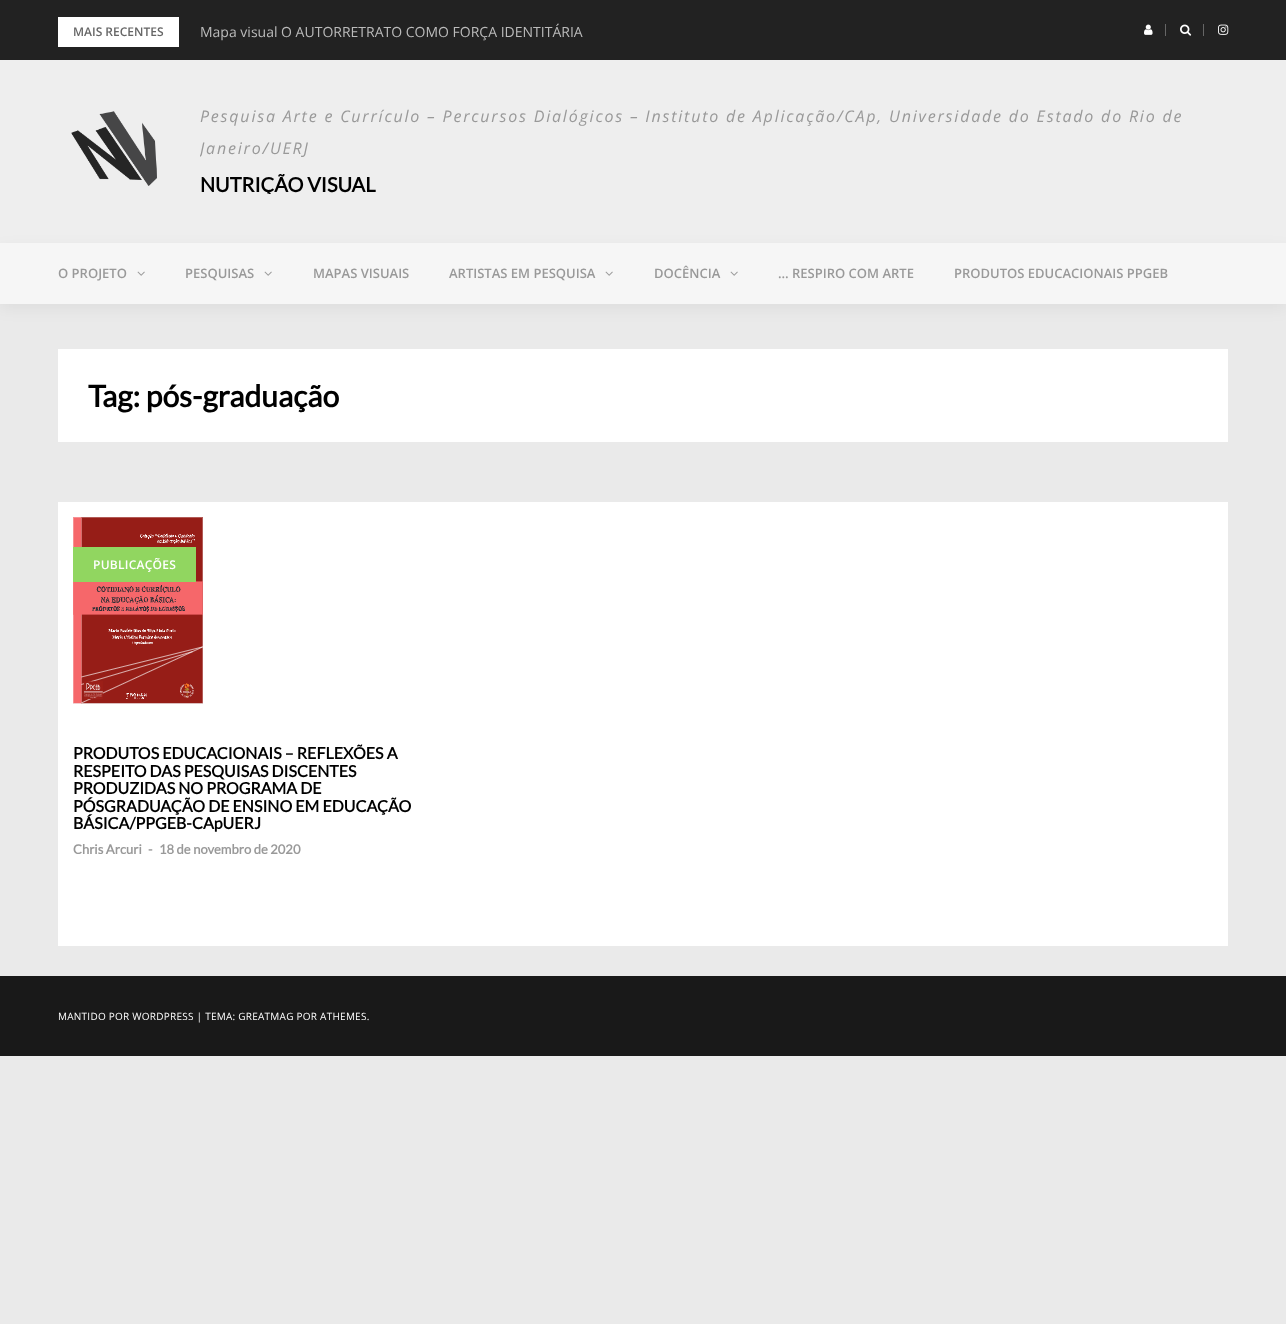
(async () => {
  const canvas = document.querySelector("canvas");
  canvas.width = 1286;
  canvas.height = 1324;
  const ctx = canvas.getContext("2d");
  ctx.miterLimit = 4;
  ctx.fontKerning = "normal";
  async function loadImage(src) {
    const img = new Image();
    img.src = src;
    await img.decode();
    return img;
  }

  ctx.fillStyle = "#eaeaea";
  ctx.fillRect(0, 0, 1286, 1324);
  for (const [x, y, w, h, color] of [
    [0, 0, 1286, 60, "#222222"],
    [58, 17, 121, 30, "#ffffff"],
    [1165, 24, 1, 12, "#666666"],
  ]) {
    ctx.fillStyle = color;
    ctx.fillRect(x, y, w, h);
  }
  ctx.drawImage(await loadImage("img/1.png"), 1144, 24, 9, 11);
  ctx.fillRect(1203, 24, 1, 12);
  ctx.drawImage(await loadImage("img/2.png"), 1180, 24, 12, 12);
  ctx.drawImage(await loadImage("img/3.png"), 1218, 24, 11, 11);
  ctx.fillStyle = "#eeeeee";
  ctx.fillRect(0, 60, 1286, 183);
  ctx.drawImage(await loadImage("img/4.png"), 71, 111, 86, 75);
  ctx.fillStyle = "rgba(0, 0, 0, 0.05)";
  ctx.filter = "blur(7.5px)";
  ctx.beginPath();
  ctx.rect(0, 248, 1286, 61);
  ctx.fill();
  ctx.filter = "none";
  ctx.fillStyle = "#f6f6f6";
  ctx.fillRect(0, 243, 1286, 61);
  ctx.drawImage(await loadImage("img/5.png"), 137, 271, 8, 5);
  ctx.drawImage(await loadImage("img/5.png"), 264, 271, 8, 5);
  ctx.drawImage(await loadImage("img/5.png"), 605, 271, 8, 5);
  ctx.drawImage(await loadImage("img/5.png"), 730, 271, 8, 5);
  ctx.fillStyle = "#ffffff";
  ctx.fillRect(58, 349, 1170, 93);
  ctx.fillRect(58, 502, 1170, 444);
  ctx.drawImage(await loadImage("img/6.png"), 73, 517, 130, 187);
  ctx.fillStyle = "#91d660";
  ctx.fillRect(73, 547, 123, 35);
  ctx.fillStyle = "#191919";
  ctx.fillRect(0, 976, 1286, 80);
  ctx.font = "600 12px Open Sans";
  ctx.fillStyle = "#666666";
  ctx.fillText("MAIS RECENTES", 73, 36);
  ctx.font = "14px Open Sans";
  ctx.fillStyle = "#bbbbbb";
  ctx.fillText("Mapa visual O AUTORRETRATO COMO FORÇA IDENTITÁRIA", 200, 37);
  ctx.letterSpacing = "1.8px";
  ctx.font = "italic 16px Open Sans";
  ctx.fillStyle = "#999999";
  ctx.fillText("Pesquisa Arte e Currículo – Percursos Dialógicos – Instituto de Aplicação/CAp, Universidade do Estado do Rio de", 200, 122);
  ctx.save();
  ctx.beginPath();
  ctx.rect(200, 100, 1028, 94);
  ctx.clip();
  ctx.fillText("Janeiro/UERJ", 200, 154);
  ctx.letterSpacing = "0px";
  ctx.font = "bold 20px Lato";
  ctx.fillStyle = "#000000";
  ctx.fillText("NUTRIÇÃO VISUAL", 200, 192);
  ctx.restore();
  ctx.letterSpacing = "0px";
  ctx.font = "600 13px Open Sans";
  for (const [text, x, y] of [
    ["O PROJETO", 58, 278],
    ["PESQUISAS", 185, 278],
    ["MAPAS VISUAIS", 313, 278],
    ["ARTISTAS EM PESQUISA", 449, 278],
    ["DOCÊNCIA", 654, 278],
    ["… RESPIRO COM ARTE", 778, 278],
    ["PRODUTOS EDUCACIONAIS PPGEB", 954, 278],
  ]) {
    ctx.fillText(text, x, y);
  }
  ctx.font = "bold 30px Lato";
  ctx.fillStyle = "#000000";
  ctx.fillText("Tag: pós-graduação", 88, 407);
  ctx.letterSpacing = "0.25px";
  ctx.font = "600 12px Open Sans";
  ctx.fillStyle = "#ffffff";
  ctx.fillText("PUBLICAÇÕES", 93, 569);
  ctx.letterSpacing = "0px";
  ctx.font = "bold 16px Lato";
  ctx.fillStyle = "#000000";
  for (const [text, x, y] of [
    ["PRODUTOS EDUCACIONAIS – REFLEXÕES A", 73, 759],
    ["RESPEITO DAS PESQUISAS DISCENTES", 73, 777],
    ["PRODUZIDAS NO PROGRAMA DE", 73, 794],
    ["PÓSGRADUAÇÃO DE ENSINO EM EDUCAÇÃO", 73, 812],
    ["BÁSICA/PPGEB-CApUERJ", 73, 829],
  ]) {
    ctx.fillText(text, x, y);
  }
  ctx.font = "bold 13px Lato";
  ctx.fillStyle = "#999999";
  for (const [text, x, y] of [
    ["Chris Arcuri", 73, 854],
    ["-", 148, 854],
    ["18 de novembro de 2020", 159, 854],
  ]) {
    ctx.fillText(text, x, y);
  }
  ctx.letterSpacing = "0.25px";
  ctx.font = "10px Open Sans";
  ctx.fillStyle = "#ffffff";
  ctx.fillText("MANTIDO POR WORDPRESS | TEMA: GREATMAG POR ATHEMES.", 58, 1020);
})();
